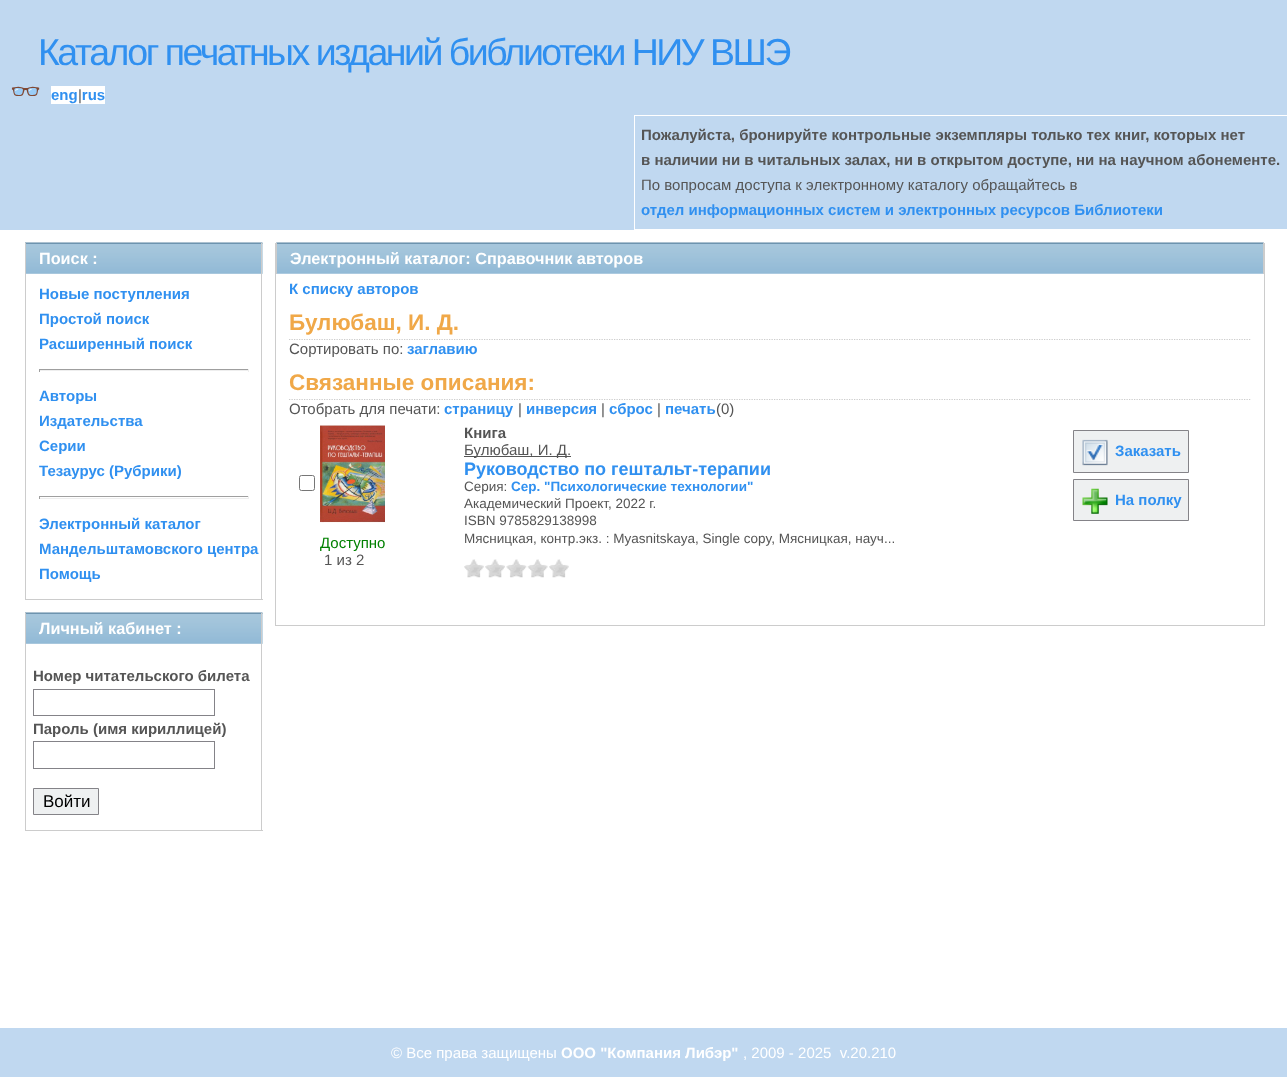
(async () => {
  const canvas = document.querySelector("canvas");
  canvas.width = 1287;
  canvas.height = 1077;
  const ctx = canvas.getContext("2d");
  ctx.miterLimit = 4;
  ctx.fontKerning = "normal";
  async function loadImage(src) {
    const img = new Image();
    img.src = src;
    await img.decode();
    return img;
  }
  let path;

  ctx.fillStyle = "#ffffff";
  ctx.fillRect(0, 0, 1287, 1077);
  ctx.fillStyle = "#c0d8f0";
  ctx.fillRect(0, 0, 1287, 230);
  ctx.fillStyle = "#ffffff";
  ctx.fillRect(51, 86, 54, 18);
  ctx.strokeStyle = "#ffffff";
  ctx.strokeRect(634.5, 115.5, 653, 114);
  ctx.fillStyle = "#eef0f1";
  ctx.fillRect(26, 243, 237, 31);
  ctx.drawImage(await loadImage("img/1.png"), 25, 242, 238, 32);
  for (const [x, y, w, h, color] of [
    [261, 243, 1, 357, "#cccccc"],
    [25, 243, 1, 31, "#cccccc"],
    [25, 599, 238, 1, "#cccccc"],
    [25, 274, 1, 326, "#cccccc"],
    [39, 369, 210, 1, "#9f9f9f"],
    [248, 369, 1, 3, "#eeeeee"],
    [39, 370, 210, 1, "#eeeeee"],
    [39, 369, 1, 3, "#9f9f9f"],
    [39, 496, 210, 1, "#9f9f9f"],
    [248, 496, 1, 3, "#eeeeee"],
    [39, 498, 210, 1, "#eeeeee"],
    [39, 496, 1, 3, "#9f9f9f"],
    [26, 613, 237, 31, "#eef0f1"],
  ]) {
    ctx.fillStyle = color;
    ctx.fillRect(x, y, w, h);
  }
  ctx.drawImage(await loadImage("img/1.png"), 25, 612, 238, 32);
  for (const [x, y, w, h, color] of [
    [261, 613, 1, 218, "#cccccc"],
    [25, 613, 1, 31, "#cccccc"],
    [25, 830, 238, 1, "#cccccc"],
    [25, 644, 1, 187, "#cccccc"],
  ]) {
    ctx.fillStyle = color;
    ctx.fillRect(x, y, w, h);
  }
  ctx.strokeStyle = "#848388";
  ctx.strokeRect(33.5, 689.5, 181, 26);
  ctx.strokeRect(33.5, 741.5, 181, 27);
  ctx.fillStyle = "#eef0f1";
  ctx.beginPath();
  ctx.rect(33.5, 788.5, 65, 26);
  ctx.fill();
  ctx.stroke();
  for (const [x, y, w, h, color] of [
    [1264, 243, 1, 383, "#cccccc"],
    [275, 625, 990, 1, "#cccccc"],
    [275, 243, 1, 383, "#cccccc"],
  ]) {
    ctx.fillStyle = color;
    ctx.fillRect(x, y, w, h);
  }
  ctx.drawImage(await loadImage("img/2.png"), 276, 242, 988, 32);
  ctx.fillRect(1263, 243, 1, 31);
  ctx.fillRect(276, 243, 1, 31);
  path = new Path2D("M289 339.5H1251");
  ctx.strokeStyle = "#cccccc";
  ctx.lineWidth = 1.2;
  ctx.setLineDash([1.25, 1.25]);
  ctx.stroke(path);
  path = new Path2D("M289 399.5H1251");
  ctx.stroke(path);
  ctx.fillStyle = "#555555";
  ctx.fillRect(464, 456, 107, 1);
  ctx.drawImage(await loadImage("img/3.png"), 464, 559, 20, 19);
  ctx.drawImage(await loadImage("img/4.png"), 485, 559, 20, 19);
  ctx.drawImage(await loadImage("img/5.png"), 506, 559, 21, 19);
  ctx.drawImage(await loadImage("img/6.png"), 527, 559, 21, 19);
  ctx.drawImage(await loadImage("img/7.png"), 549, 559, 20, 19);
  ctx.fillStyle = "#eef0f1";
  ctx.beginPath();
  ctx.rect(1073.5, 430.5, 115, 42);
  ctx.fill();
  ctx.strokeStyle = "#848388";
  ctx.lineWidth = 1;
  ctx.setLineDash([]);
  ctx.stroke();
  ctx.drawImage(await loadImage("img/8.png"), 1082, 439, 26, 27);
  ctx.beginPath();
  ctx.rect(1073.5, 479.5, 115, 41);
  ctx.fill();
  ctx.stroke();
  ctx.drawImage(await loadImage("img/9.png"), 1082, 488, 26, 26);
  ctx.beginPath();
  ctx.roundRect(299.5, 475.5, 15, 15, 2);
  ctx.strokeStyle = "#767676";
  ctx.stroke();
  ctx.drawImage(await loadImage("img/10.png"), 320, 425, 65, 98);
  ctx.fillStyle = "#c0d8f0";
  ctx.fillRect(0, 1028, 1287, 49);
  ctx.letterSpacing = "-2.5px";
  ctx.font = "37.5px Liberation Sans";
  ctx.fillStyle = "#3090f0";
  ctx.fillText("Каталог печатных изданий библиотеки НИУ ВШЭ", 38, 65);
  ctx.letterSpacing = "0px";
  ctx.font = "bold 25px Noto Color Emoji";
  ctx.fillText("👓", 10, 100);
  ctx.font = "bold 15px Liberation Sans";
  ctx.fillText("eng rus", 51, 100);
  ctx.font = "15px Liberation Sans";
  ctx.fillStyle = "#555555";
  ctx.fillText("|", 78, 100);
  ctx.font = "bold 15px Liberation Sans";
  ctx.fillText("Пожалуйста, бронируйте контрольные экземпляры только тех книг, которых нет", 641, 140);
  ctx.fillText("в наличии ни в читальных залах, ни в открытом доступе, ни на научном абонементе.", 641, 165);
  ctx.font = "15px Liberation Sans";
  ctx.fillText("По вопросам доступа к электронному каталогу обращайтесь в", 641, 190);
  ctx.font = "bold 15px Liberation Sans";
  ctx.fillStyle = "#3090f0";
  ctx.fillText("отдел информационных систем и электронных ресурсов Библиотеки", 641, 215);
  ctx.font = "bold 16.25px Liberation Sans";
  ctx.fillStyle = "#ffffff";
  ctx.fillText("Поиск :", 39, 264);
  ctx.font = "bold 15px Liberation Sans";
  ctx.fillStyle = "#3090f0";
  for (const [text, x, y] of [
    ["Новые поступления", 39, 299],
    ["Простой поиск", 39, 324],
    ["Расширенный поиск", 39, 349],
    ["Авторы", 39, 401],
    ["Издательства", 39, 426],
    ["Серии", 39, 451],
    ["Тезаурус (Рубрики)", 39, 476],
    ["Электронный каталог", 39, 529],
    ["Мандельштамовского центра", 39, 554],
    ["Помощь", 39, 579],
  ]) {
    ctx.fillText(text, x, y);
  }
  ctx.font = "bold 16.25px Liberation Sans";
  ctx.fillStyle = "#ffffff";
  ctx.fillText("Личный кабинет :", 39, 634);
  ctx.font = "bold 15px Liberation Sans";
  ctx.fillStyle = "#555555";
  ctx.fillText("Номер читательского билета", 33, 681);
  ctx.fillText("Пароль (имя кириллицей)", 33, 734);
  ctx.font = "17px Liberation Sans";
  ctx.fillStyle = "#000000";
  ctx.fillText("Войти", 43, 807);
  ctx.font = "bold 16.25px Liberation Sans";
  ctx.fillStyle = "#ffffff";
  ctx.fillText("Электронный каталог: Справочник авторов", 290, 264);
  ctx.font = "bold 15px Liberation Sans";
  ctx.fillStyle = "#3090f0";
  ctx.fillText("К списку авторов", 289, 294);
  ctx.font = "bold 22.5px Liberation Sans";
  ctx.fillStyle = "#f0a848";
  ctx.fillText("Булюбаш, И. Д.", 289, 330);
  ctx.font = "15px Liberation Sans";
  ctx.fillStyle = "#555555";
  ctx.fillText("Сортировать по:", 289, 354);
  ctx.font = "bold 15px Liberation Sans";
  ctx.fillStyle = "#3090f0";
  ctx.fillText("заглавию", 407, 354);
  ctx.font = "bold 22.5px Liberation Sans";
  ctx.fillStyle = "#f0a848";
  ctx.fillText("Связанные описания:", 289, 390);
  ctx.font = "15px Liberation Sans";
  ctx.fillStyle = "#555555";
  ctx.fillText("Отобрать для печати:", 289, 414);
  ctx.font = "bold 15px Liberation Sans";
  ctx.fillStyle = "#3090f0";
  ctx.fillText("страницу", 444, 414);
  ctx.font = "15px Liberation Sans";
  ctx.fillStyle = "#555555";
  ctx.fillText("|", 518, 414);
  ctx.font = "bold 15px Liberation Sans";
  ctx.fillStyle = "#3090f0";
  ctx.fillText("инверсия", 526, 414);
  ctx.font = "15px Liberation Sans";
  ctx.fillStyle = "#555555";
  ctx.fillText("|", 601, 414);
  ctx.font = "bold 15px Liberation Sans";
  ctx.fillStyle = "#3090f0";
  ctx.fillText("сброс", 609, 414);
  ctx.font = "15px Liberation Sans";
  ctx.fillStyle = "#555555";
  ctx.fillText("|", 657, 414);
  ctx.font = "bold 15px Liberation Sans";
  ctx.fillStyle = "#3090f0";
  ctx.fillText("печать", 665, 414);
  ctx.font = "15px Liberation Sans";
  ctx.fillStyle = "#555555";
  ctx.fillText("(0)", 716, 414);
  ctx.font = "bold 15px Liberation Sans";
  ctx.fillText("Книга", 464, 438);
  ctx.font = "15px Liberation Sans";
  ctx.fillText("Булюбаш, И. Д.", 464, 455);
  ctx.font = "bold 18px Liberation Sans";
  ctx.fillStyle = "#3090f0";
  ctx.fillText("Руководство по гештальт-терапии", 464, 475);
  ctx.font = "13.5px Liberation Sans";
  ctx.fillStyle = "#555555";
  ctx.fillText("Серия:", 464, 491);
  ctx.font = "bold 13.5px Liberation Sans";
  ctx.fillStyle = "#3090f0";
  ctx.fillText("Сер. \"Психологические технологии\"", 511, 491);
  ctx.font = "13.5px Liberation Sans";
  ctx.fillStyle = "#555555";
  for (const [text, x, y] of [
    ["Академический Проект, 2022 г.", 464, 508],
    ["ISBN 9785829138998", 464, 525],
    ["Мясницкая, контр.экз. : Myasnitskaya, Single copy, Мясницкая, науч...", 464, 543],
  ]) {
    ctx.fillText(text, x, y);
  }
  ctx.font = "bold 15px Liberation Sans";
  ctx.fillStyle = "#3090f0";
  ctx.fillText("Заказать", 1115, 456);
  ctx.fillText("На полку", 1115, 505);
  ctx.font = "15px Liberation Sans";
  ctx.fillStyle = "#008000";
  ctx.fillText("Доступно", 320, 548);
  ctx.fillStyle = "#555555";
  ctx.fillText("1 из 2", 324, 565);
  ctx.fillStyle = "#ffffff";
  ctx.fillText("© Все права защищены", 391, 1058);
  ctx.font = "bold 15px Liberation Sans";
  ctx.fillText("ООО \"Компания Либэр\"", 561, 1058);
  ctx.font = "15px Liberation Sans";
  ctx.fillText(", 2009 - 2025  v.20.210", 743, 1058);
})();
